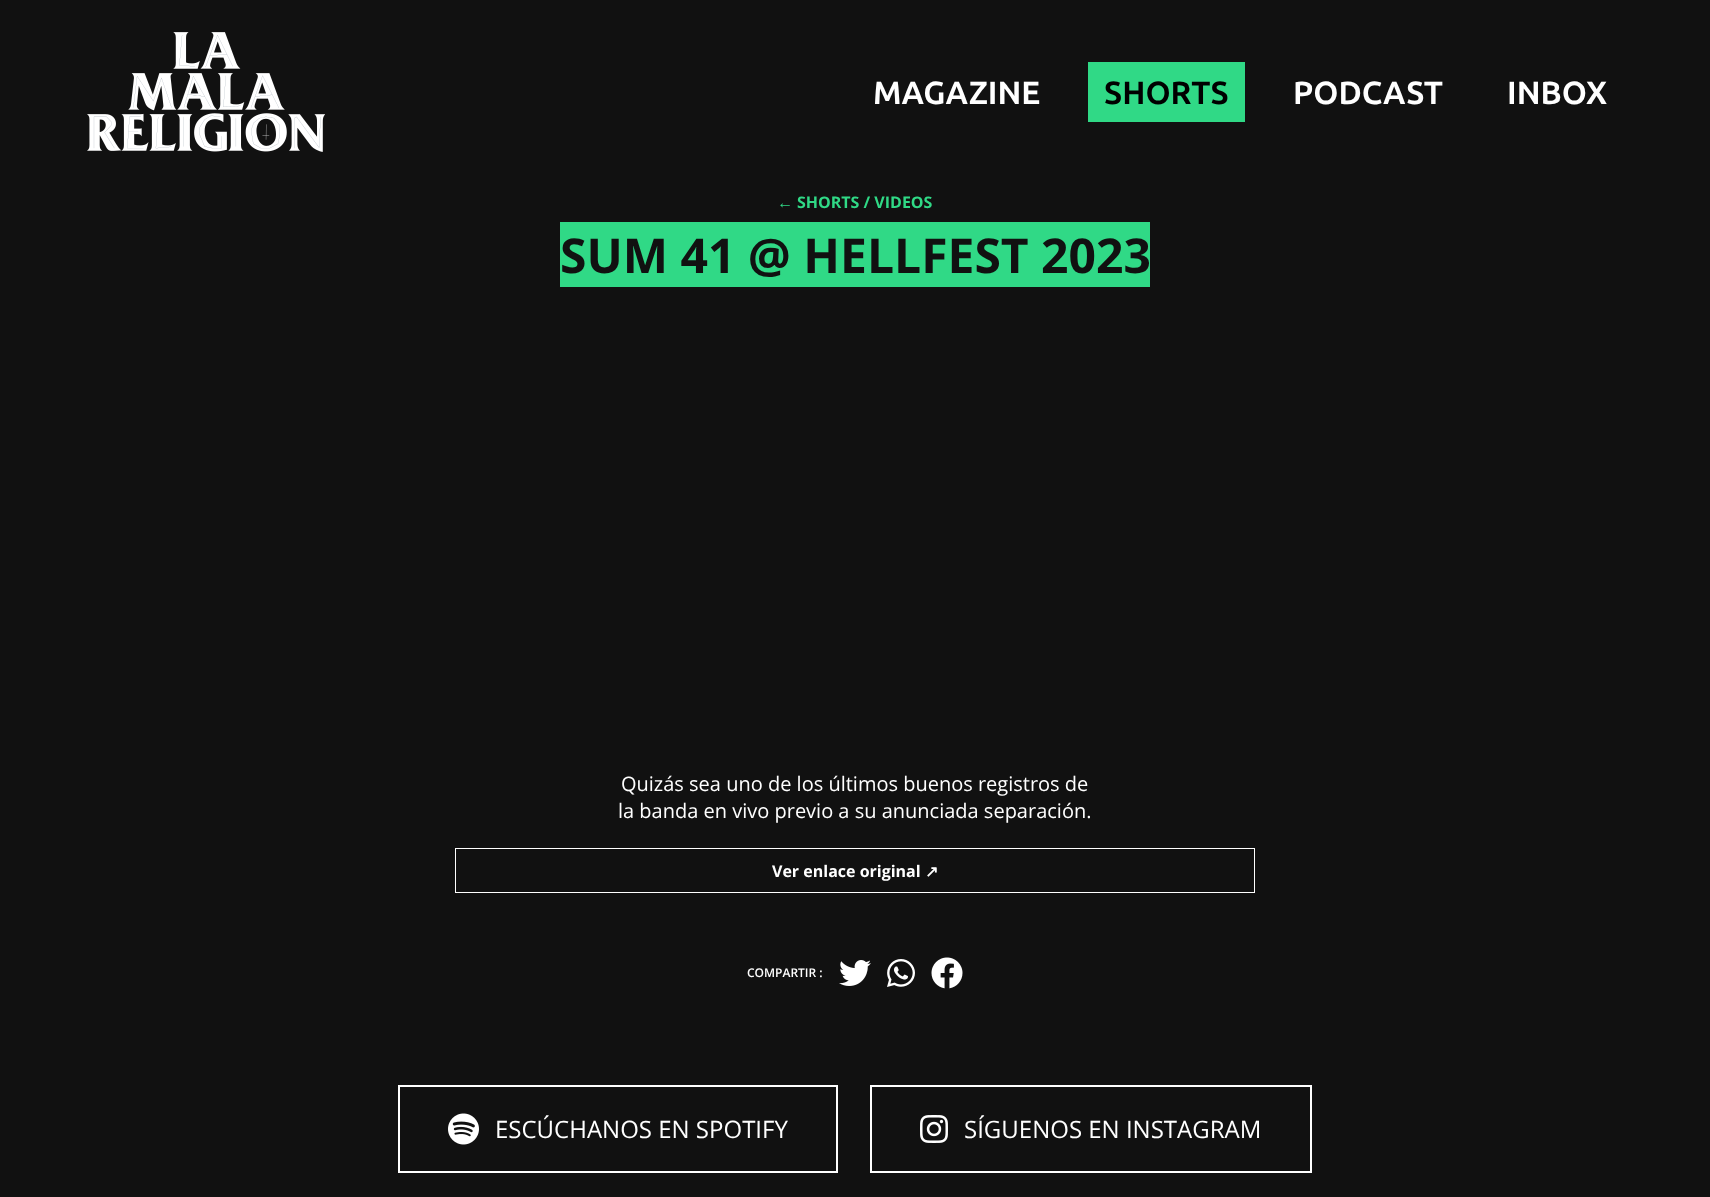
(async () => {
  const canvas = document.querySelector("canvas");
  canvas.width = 1710;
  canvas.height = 1197;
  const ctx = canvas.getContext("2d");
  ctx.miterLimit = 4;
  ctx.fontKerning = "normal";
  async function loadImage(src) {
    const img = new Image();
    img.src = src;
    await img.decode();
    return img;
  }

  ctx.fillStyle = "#111111";
  ctx.fillRect(0, 0, 1710, 1197);
  ctx.drawImage(await loadImage("img/1.png"), 87, 32, 238, 120);
  ctx.fillStyle = "#30d986";
  ctx.fillRect(1088, 62, 157, 60);
  ctx.fillRect(560, 222, 590, 65);
  ctx.strokeStyle = "#ffffff";
  ctx.strokeRect(455.5, 848.5, 799, 44);
  ctx.drawImage(await loadImage("img/2.png"), 839, 960, 32, 26);
  ctx.drawImage(await loadImage("img/3.png"), 887, 959, 28, 28);
  ctx.drawImage(await loadImage("img/4.png"), 931, 957, 32, 32);
  ctx.lineWidth = 2;
  ctx.strokeRect(399, 1086, 438, 86);
  ctx.drawImage(await loadImage("img/5.png"), 448, 1113, 31, 32);
  ctx.strokeRect(871, 1086, 440, 86);
  ctx.drawImage(await loadImage("img/6.png"), 920, 1115, 28, 28);
  ctx.font = "bold 32px Ubuntu";
  ctx.fillStyle = "#ffffff";
  ctx.fillText("MAGAZINE", 873, 104);
  ctx.fillStyle = "#000000";
  ctx.fillText("SHORTS", 1104, 104);
  ctx.fillStyle = "#ffffff";
  ctx.fillText("PODCAST", 1293, 104);
  ctx.fillText("INBOX", 1507, 104);
  ctx.font = "bold 16px Liberation Sans";
  ctx.fillStyle = "#30d986";
  ctx.fillText("←", 777, 208);
  ctx.font = "bold 16px Open Sans";
  ctx.fillText("SHORTS / VIDEOS", 797, 208);
  ctx.font = "bold 48px Open Sans";
  ctx.fillStyle = "#111111";
  ctx.fillText("SUM 41 @ HELLFEST 2023", 560, 273);
  ctx.font = "20px Open Sans";
  ctx.fillStyle = "#ffffff";
  ctx.fillText("Quizás sea uno de los últimos buenos registros de", 621, 791);
  ctx.fillText("la banda en vivo previo a su anunciada separación.", 618, 818);
  ctx.font = "bold 16px Open Sans";
  ctx.fillText("Ver enlace original", 772, 877);
  ctx.font = "bold 16px DejaVu Sans";
  ctx.fillText("↗", 925, 877);
  ctx.font = "600 12px Open Sans";
  ctx.fillText("COMPARTIR :", 747, 977);
  ctx.font = "24px Open Sans";
  ctx.fillText("ESCÚCHANOS EN SPOTIFY", 495, 1138);
  ctx.fillText("SÍGUENOS EN INSTAGRAM", 964, 1138);
})();
